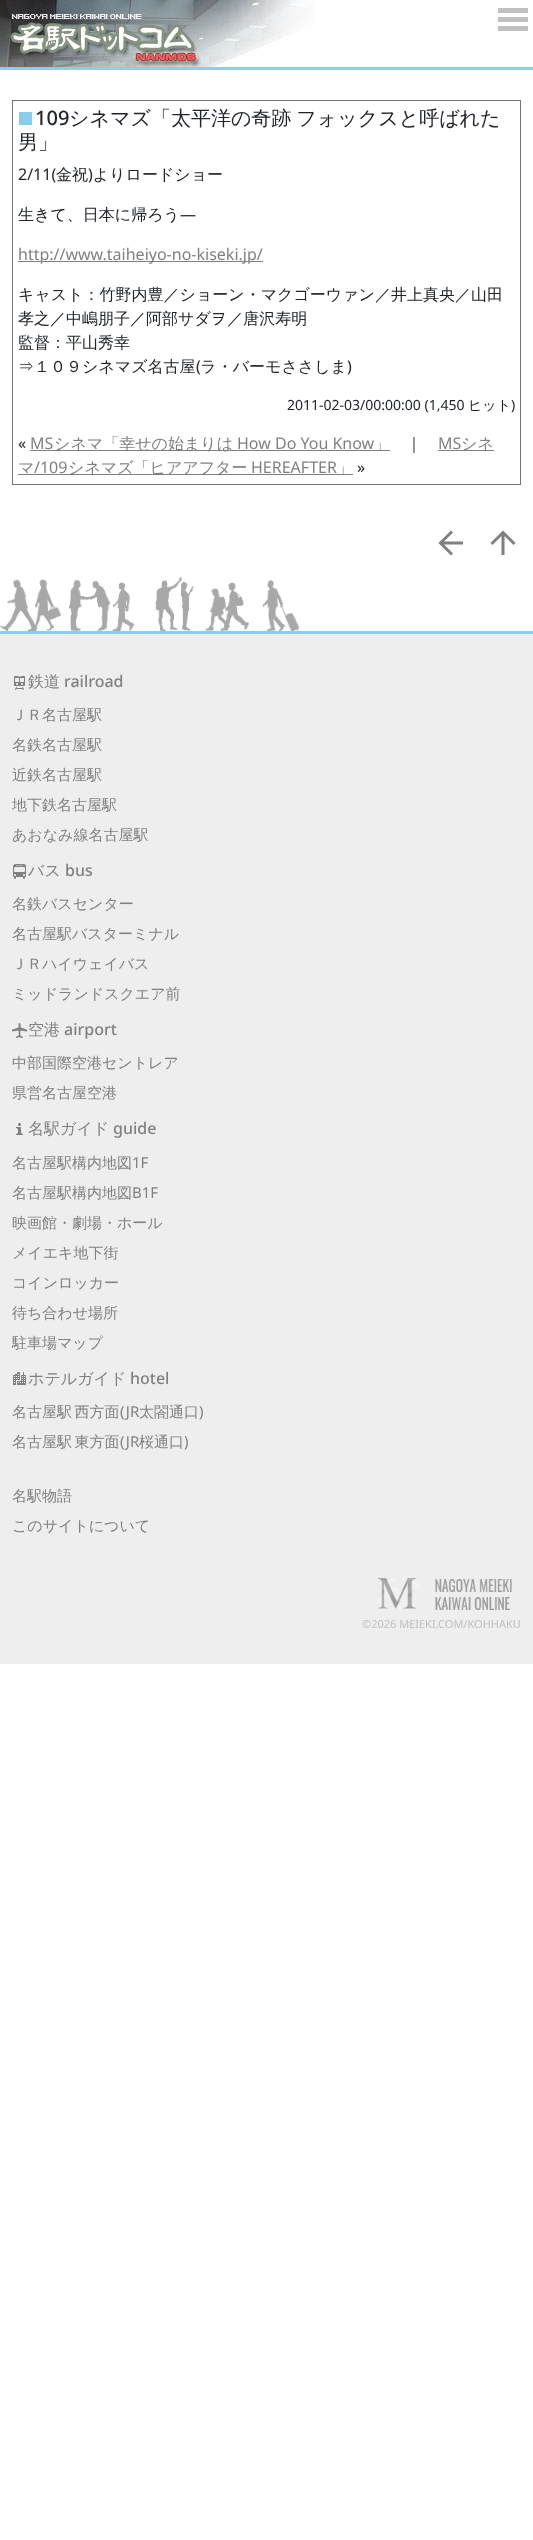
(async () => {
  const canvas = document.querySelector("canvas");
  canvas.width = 533;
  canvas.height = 2540;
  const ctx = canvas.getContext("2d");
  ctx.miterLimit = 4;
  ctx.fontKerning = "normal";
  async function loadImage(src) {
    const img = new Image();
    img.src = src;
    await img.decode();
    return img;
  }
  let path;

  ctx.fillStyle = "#ffffff";
  ctx.fillRect(0, 0, 533, 2540);
  ctx.drawImage(await loadImage("img/1.png"), 0, 0, 313, 67);
  for (const [x, y, w, h, color] of [
    [498, 8, 30, 5, "#c0c0c0"],
    [498, 17, 30, 5, "#c0c0c0"],
    [498, 26, 30, 5, "#c0c0c0"],
    [0, 67, 533, 3, "#87cefa"],
  ]) {
    ctx.fillStyle = color;
    ctx.fillRect(x, y, w, h);
  }
  ctx.strokeStyle = "#6c757d";
  ctx.strokeRect(12.5, 100.5, 508, 384);
  for (const [x, y, w, h, color] of [
    [19, 112, 13, 13, "#87ceeb"],
    [18, 261, 245, 1, "#808080"],
    [30, 450, 360, 1, "#808080"],
    [438, 450, 56, 1, "#808080"],
    [18, 474, 335, 1, "#808080"],
  ]) {
    ctx.fillStyle = color;
    ctx.fillRect(x, y, w, h);
  }
  path = new Path2D("M461.5 543H442M451 532.5L440.5 543L451 553.5");
  ctx.strokeStyle = "#808080";
  ctx.lineWidth = 3;
  ctx.lineCap = "square";
  ctx.stroke(path);
  path = new Path2D("M503 553.5V534M492.5 543L503 532.5L513.5 543");
  ctx.stroke(path);
  ctx.drawImage(await loadImage("img/2.png"), 0, 577, 300, 54);
  ctx.fillStyle = "#87cefa";
  ctx.fillRect(0, 631, 533, 3);
  ctx.fillStyle = "#eeeeee";
  ctx.fillRect(0, 634, 533, 1030);
  ctx.drawImage(await loadImage("img/3.png"), 14, 676, 11, 14);
  ctx.drawImage(await loadImage("img/4.png"), 13, 864, 13, 15);
  ctx.drawImage(await loadImage("img/5.png"), 12, 1023, 15, 15);
  ctx.drawImage(await loadImage("img/6.png"), 16, 1123, 7, 12);
  ctx.drawImage(await loadImage("img/7.png"), 13, 1372, 13, 13);
  ctx.drawImage(await loadImage("img/8.png"), 377, 1578, 135, 32);
  ctx.font = "500 20px Noto Sans";
  ctx.fillStyle = "#212529";
  ctx.fillText("109", 35, 125);
  ctx.wordSpacing = "-1px";
  ctx.font = "500 20px WenQuanYi Zen Hei";
  ctx.fillText("シネマズ「太平洋の奇跡 フォックスと呼ばれた", 69, 125);
  ctx.wordSpacing = "0px";
  ctx.fillText("男」", 18, 149);
  ctx.font = "16px Noto Sans";
  ctx.fillText("2/11(", 18, 180);
  ctx.font = "500 16px WenQuanYi Zen Hei";
  ctx.fillText("金祝 よりロードショー", 56, 180);
  ctx.font = "16px Noto Sans";
  ctx.fillText(")", 88, 180);
  ctx.font = "500 16px WenQuanYi Zen Hei";
  ctx.fillText("生きて、日本に帰ろう", 18, 220);
  ctx.font = "16px Noto Sans";
  ctx.fillText("―", 180, 220);
  ctx.fillStyle = "#808080";
  ctx.fillText("http://www.taiheiyo-no-kiseki.jp/", 18, 260);
  ctx.font = "500 16px WenQuanYi Zen Hei";
  ctx.fillStyle = "#212529";
  for (const [text, x, y] of [
    ["キャスト：竹野内豊／ショーン・マクゴーウァン／井上真央／山田", 18, 300],
    ["孝之／中嶋朋子／阿部サダヲ／唐沢寿明", 18, 324],
    ["監督：平山秀幸", 18, 348],
    ["⇒１０９シネマズ名古屋 ラ・バーモささしま", 18, 372],
  ]) {
    ctx.fillText(text, x, y);
  }
  ctx.font = "16px Noto Sans";
  ctx.fillText("(", 196, 372);
  ctx.fillText(")", 347, 372);
  ctx.font = "14px Noto Sans";
  ctx.fillText("2011-02-03/00:00:00 (1,450", 287, 410);
  ctx.font = "500 14px WenQuanYi Zen Hei";
  ctx.fillText("ヒット", 468, 410);
  ctx.font = "14px Noto Sans";
  ctx.fillText(")", 511, 410);
  ctx.font = "16px Noto Sans";
  ctx.fillText("«", 18, 449);
  ctx.fillStyle = "#808080";
  ctx.fillText("MS", 30, 449);
  ctx.font = "500 16px WenQuanYi Zen Hei";
  ctx.fillText("シネマ「幸せの始まりは", 54, 449);
  ctx.font = "16px Noto Sans";
  ctx.fillText("How Do You Know", 237, 449);
  ctx.font = "500 16px WenQuanYi Zen Hei";
  ctx.fillText("」", 374, 449);
  ctx.fillStyle = "#212529";
  ctx.fillText("｜", 406, 449);
  ctx.font = "16px Noto Sans";
  ctx.fillStyle = "#808080";
  ctx.fillText("MS", 438, 449);
  ctx.font = "500 16px WenQuanYi Zen Hei";
  ctx.fillText("シネ", 461, 449);
  ctx.fillText("マ", 18, 473);
  ctx.font = "16px Noto Sans";
  ctx.fillText("/109", 34, 473);
  ctx.font = "500 16px WenQuanYi Zen Hei";
  ctx.fillText("シネマズ「ヒアアフター", 68, 473);
  ctx.font = "16px Noto Sans";
  ctx.fillText("HEREAFTER", 251, 473);
  ctx.font = "500 16px WenQuanYi Zen Hei";
  ctx.fillText("」", 337, 473);
  ctx.font = "16px Noto Sans";
  ctx.fillStyle = "#212529";
  ctx.fillText("»", 357, 473);
  ctx.font = "500 16px WenQuanYi Zen Hei";
  ctx.fillStyle = "#808080";
  ctx.fillText("鉄道", 28, 687);
  ctx.font = "500 16px Noto Sans";
  ctx.fillText("railroad", 64, 687);
  ctx.font = "500 15px WenQuanYi Zen Hei";
  for (const [text, x, y] of [
    ["ＪＲ名古屋駅", 12, 720],
    ["名鉄名古屋駅", 12, 750],
    ["近鉄名古屋駅", 12, 780],
    ["地下鉄名古屋駅", 12, 810],
    ["あおなみ線名古屋駅", 12, 840],
  ]) {
    ctx.fillText(text, x, y);
  }
  ctx.font = "500 16px WenQuanYi Zen Hei";
  ctx.fillText("バス", 28, 876);
  ctx.font = "500 16px Noto Sans";
  ctx.fillText("bus", 65, 876);
  ctx.font = "500 15px WenQuanYi Zen Hei";
  for (const [text, x, y] of [
    ["名鉄バスセンター", 12, 909],
    ["名古屋駅バスターミナル", 12, 939],
    ["ＪＲハイウェイバス", 12, 969],
    ["ミッドランドスクエア前", 12, 999],
  ]) {
    ctx.fillText(text, x, y);
  }
  ctx.font = "500 16px WenQuanYi Zen Hei";
  ctx.fillText("空港", 28, 1035);
  ctx.font = "500 16px Noto Sans";
  ctx.fillText("airport", 64, 1035);
  ctx.font = "500 15px WenQuanYi Zen Hei";
  ctx.fillText("中部国際空港セントレア", 12, 1068);
  ctx.fillText("県営名古屋空港", 12, 1098);
  ctx.font = "500 16px WenQuanYi Zen Hei";
  ctx.fillText("名駅ガイド", 28, 1134);
  ctx.font = "500 16px Noto Sans";
  ctx.fillText("guide", 113, 1134);
  ctx.font = "500 15px WenQuanYi Zen Hei";
  ctx.fillText("名古屋駅構内地図", 12, 1168);
  ctx.font = "15px Noto Sans";
  ctx.fillText("1F", 132, 1168);
  ctx.font = "500 15px WenQuanYi Zen Hei";
  ctx.fillText("名古屋駅構内地図", 12, 1198);
  ctx.font = "15px Noto Sans";
  ctx.fillText("B1F", 132, 1198);
  ctx.font = "500 15px WenQuanYi Zen Hei";
  for (const [text, x, y] of [
    ["映画館・劇場・ホール", 12, 1228],
    ["メイエキ地下街", 12, 1258],
    ["コインロッカー", 12, 1288],
    ["待ち合わせ場所", 12, 1318],
    ["駐車場マップ", 12, 1348],
  ]) {
    ctx.fillText(text, x, y);
  }
  ctx.font = "500 16px WenQuanYi Zen Hei";
  ctx.fillText("ホテルガイド", 28, 1384);
  ctx.font = "500 16px Noto Sans";
  ctx.fillText("hotel", 130, 1384);
  ctx.wordSpacing = "-2px";
  ctx.font = "500 15px WenQuanYi Zen Hei";
  ctx.fillText("名古屋駅 西方面", 12, 1417);
  ctx.wordSpacing = "0px";
  ctx.font = "15px Noto Sans";
  ctx.fillText("(JR", 120, 1417);
  ctx.font = "500 15px WenQuanYi Zen Hei";
  ctx.fillText("太閤通口", 139, 1417);
  ctx.font = "15px Noto Sans";
  ctx.fillText(")", 199, 1417);
  ctx.wordSpacing = "-2px";
  ctx.font = "500 15px WenQuanYi Zen Hei";
  ctx.fillText("名古屋駅 東方面", 12, 1447);
  ctx.wordSpacing = "0px";
  ctx.font = "15px Noto Sans";
  ctx.fillText("(JR", 120, 1447);
  ctx.font = "500 15px WenQuanYi Zen Hei";
  ctx.fillText("桜通口", 139, 1447);
  ctx.font = "15px Noto Sans";
  ctx.fillText(")", 184, 1447);
  ctx.font = "500 15px WenQuanYi Zen Hei";
  ctx.fillText("名駅物語", 12, 1501);
  ctx.fillText("このサイトについて", 12, 1531);
  ctx.font = "11px Noto Sans";
  ctx.fillStyle = "#c0c0c0";
  ctx.fillText("©2026 MEIEKI.COM/KOHHAKU", 362, 1628);
})();
